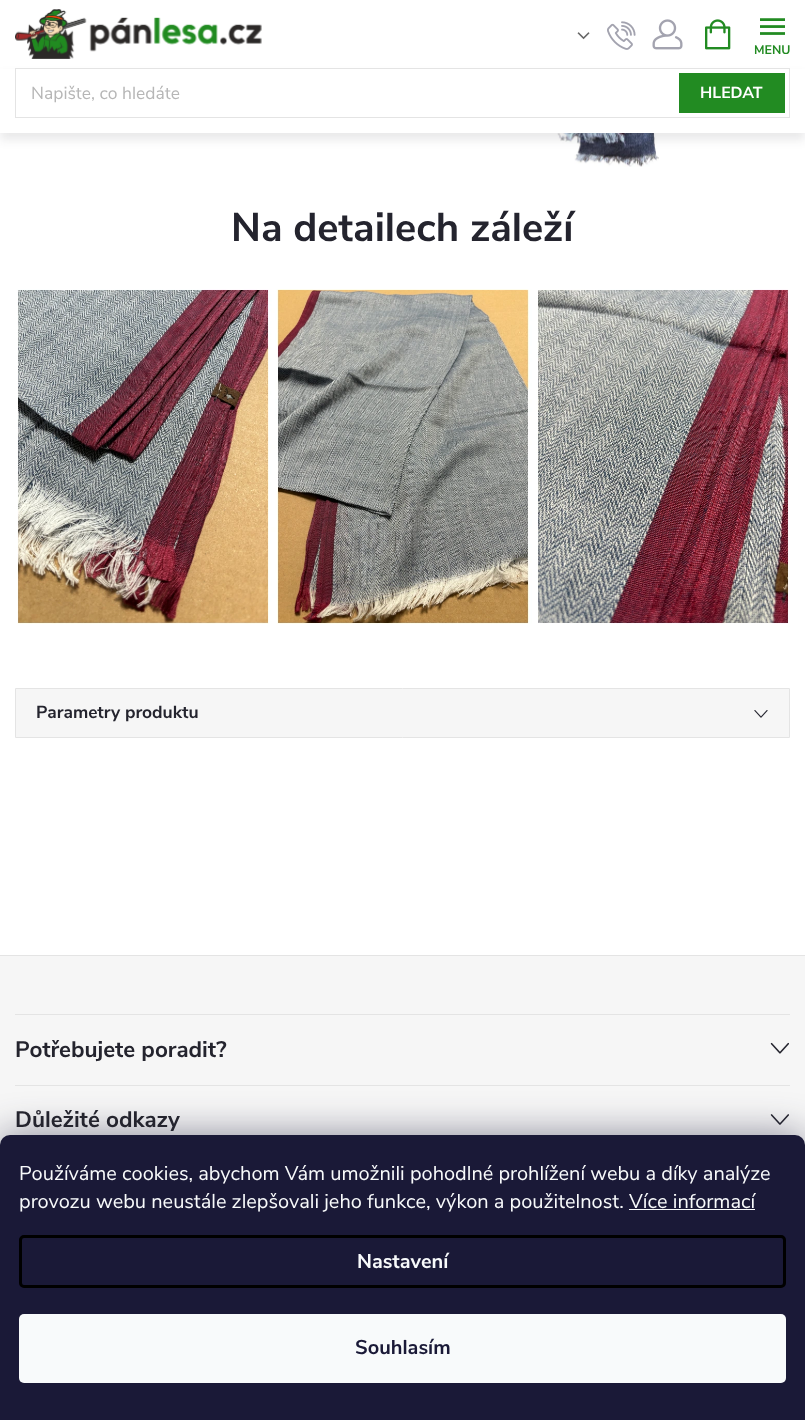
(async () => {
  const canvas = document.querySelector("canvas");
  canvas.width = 805;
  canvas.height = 1420;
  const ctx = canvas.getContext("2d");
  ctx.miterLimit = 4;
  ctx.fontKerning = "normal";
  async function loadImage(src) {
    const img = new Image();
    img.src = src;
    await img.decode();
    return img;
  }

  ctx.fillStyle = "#ffffff";
  ctx.fillRect(0, 0, 805, 1420);
  ctx.drawImage(await loadImage("img/1.png"), 577, 32, 13, 8);
  ctx.drawImage(await loadImage("img/2.png"), 607, 21, 29, 29);
  ctx.drawImage(await loadImage("img/3.png"), 652, 19, 31, 31);
  ctx.drawImage(await loadImage("img/4.png"), 760, 18, 25, 17);
  ctx.drawImage(await loadImage("img/7.png"), 557, 133, 102, 34);
  ctx.fillStyle = "rgba(36, 36, 46, 0.1)";
  ctx.filter = "blur(5px)";
  ctx.beginPath();
  ctx.rect(0, 75, 805, 65);
  ctx.fill();
  ctx.filter = "none";
  ctx.fillStyle = "#ffffff";
  ctx.fillRect(0, 69, 805, 64);
  ctx.drawImage(await loadImage("img/5.png"), 15, 9, 247, 50);
  ctx.drawImage(await loadImage("img/6.png"), 705, 19, 26, 31);
  ctx.strokeStyle = "#e4e4e4";
  ctx.strokeRect(15.5, 68.5, 774, 49);
  ctx.fillStyle = "#228b22";
  ctx.fillRect(679, 73, 106, 40);
  ctx.drawImage(await loadImage("img/8.png"), 17, 289, 772, 335);
  ctx.fillStyle = "#f6f6f6";
  ctx.beginPath();
  ctx.rect(15.5, 688.5, 774, 49);
  ctx.fill();
  ctx.stroke();
  ctx.drawImage(await loadImage("img/9.png"), 754, 710, 14, 8);
  for (const [x, y, w, h, color] of [
    [0, 956, 805, 189, "#f6f6f6"],
    [0, 955, 805, 1, "#e4e4e4"],
    [15, 1014, 775, 1, "#e4e4e4"],
    [15, 1085, 775, 1, "#e4e4e4"],
  ]) {
    ctx.fillStyle = color;
    ctx.fillRect(x, y, w, h);
  }
  ctx.drawImage(await loadImage("img/10.png"), 770, 1042, 19, 12);
  ctx.drawImage(await loadImage("img/11.png"), 770, 1114, 19, 11);
  ctx.fillStyle = "rgba(27, 25, 57, 0.5)";
  ctx.filter = "blur(19px)";
  ctx.beginPath();
  ctx.roundRect(0, 1135, 805, 285, 10);
  ctx.fill();
  ctx.filter = "none";
  ctx.fillStyle = "#1a1937";
  ctx.beginPath();
  ctx.roundRect(0, 1135, 805, 285, [10, 10, 0, 0]);
  ctx.fill();
  ctx.fillStyle = "#f8fafb";
  ctx.fillRect(629, 1209, 126, 1);
  ctx.beginPath();
  ctx.roundRect(20.5, 1236.5, 764, 50, 3.5);
  ctx.strokeStyle = "#000000";
  ctx.lineWidth = 3;
  ctx.stroke();
  ctx.beginPath();
  ctx.roundRect(19, 1314, 767, 69, 5);
  ctx.fill();
  ctx.font = "bold 12.5px Nunito Sans";
  ctx.fillStyle = "#228b22";
  ctx.fillText("MENU", 754, 54);
  ctx.font = "17.5px Nunito Sans";
  ctx.fillStyle = "#b6b6b6";
  ctx.fillText("Napište, co hledáte", 31, 99);
  ctx.font = "bold 16px Nunito Sans";
  ctx.fillStyle = "#ffffff";
  ctx.fillText("HLEDAT", 700, 98);
  ctx.font = "bold 40px Nunito Sans";
  ctx.fillStyle = "#24242e";
  ctx.fillText("Na detailech záleží", 231, 241);
  ctx.font = "bold 17.5px Nunito Sans";
  ctx.fillText("Parametry produktu", 36, 718);
  ctx.font = "bold 22.5px Nunito Sans";
  ctx.fillText("Potřebujete poradit?", 15, 1057);
  ctx.fillText("Důležité odkazy", 15, 1127);
  ctx.font = "20px Nunito Sans";
  ctx.fillStyle = "#f8fafb";
  ctx.fillText("Používáme cookies, abychom Vám umožnili pohodlné prohlížení webu a díky analýze", 19, 1180);
  ctx.fillText("provozu webu neustále zlepšovali jeho funkce, výkon a použitelnost. Více informací", 19, 1208);
  ctx.font = "bold 20px Nunito Sans";
  ctx.fillText("Nastavení", 357, 1268);
  ctx.fillStyle = "#1a1937";
  ctx.fillText("Souhlasím", 355, 1354);
})();
